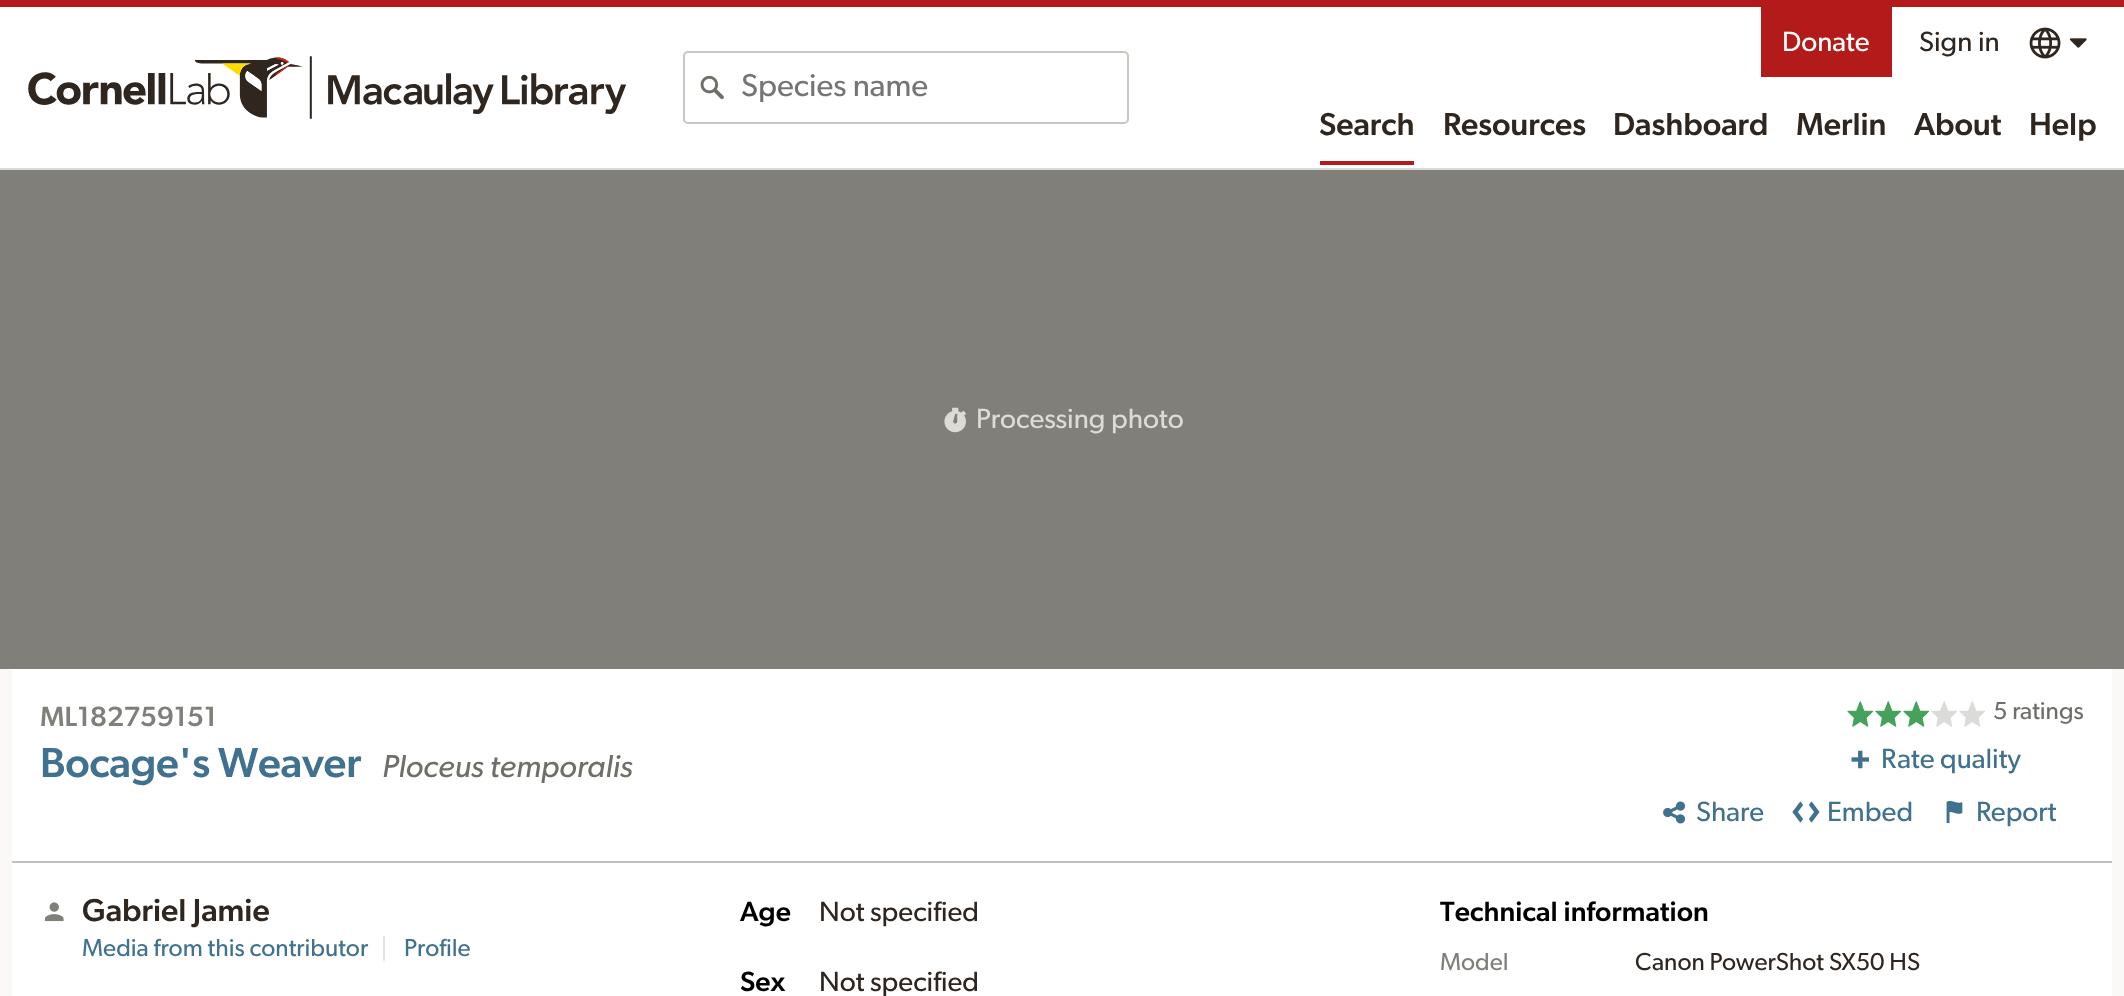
(async () => {
  const canvas = document.querySelector("canvas");
  canvas.width = 2124;
  canvas.height = 996;
  const ctx = canvas.getContext("2d");
  ctx.miterLimit = 4;
  ctx.fontKerning = "normal";
  async function loadImage(src) {
    const img = new Image();
    img.src = src;
    await img.decode();
    return img;
  }

  ctx.fillStyle = "#ffffff";
  ctx.fillRect(0, 0, 2124, 996);
  ctx.fillStyle = "#b31b1b";
  ctx.fillRect(0, 0, 2124, 7);
  ctx.fillStyle = "#dbdbd9";
  ctx.fillRect(0, 168, 2124, 2);
  ctx.drawImage(await loadImage("img/1.png"), 28, 56, 598, 63);
  ctx.beginPath();
  ctx.roundRect(684, 52, 444, 71, 4);
  ctx.strokeStyle = "#c8c7c0";
  ctx.lineWidth = 2;
  ctx.stroke();
  ctx.drawImage(await loadImage("img/2.png"), 700, 75, 24, 25);
  ctx.fillStyle = "#b31b1b";
  ctx.fillRect(1761, 7, 131, 70);
  ctx.drawImage(await loadImage("img/3.png"), 2029, 27, 32, 32);
  ctx.drawImage(await loadImage("img/4.png"), 2069, 38, 18, 10);
  ctx.fillRect(1320, 161, 94, 4);
  ctx.fillStyle = "#817f79";
  ctx.fillRect(0, 170, 2124, 499);
  ctx.drawImage(await loadImage("img/5.png"), 944, 407, 22, 26);
  ctx.fillStyle = "#faf9f7";
  ctx.fillRect(0, 669, 2124, 327);
  ctx.fillStyle = "#ffffff";
  ctx.fillRect(12, 669, 2100, 327);
  ctx.drawImage(await loadImage("img/6.png"), 1847, 701, 27, 26);
  ctx.drawImage(await loadImage("img/6.png"), 1875, 701, 27, 26);
  ctx.drawImage(await loadImage("img/6.png"), 1903, 701, 27, 26);
  ctx.drawImage(await loadImage("img/7.png"), 1931, 701, 26, 26);
  ctx.drawImage(await loadImage("img/7.png"), 1959, 701, 26, 26);
  ctx.drawImage(await loadImage("img/8.png"), 1851, 750, 18, 19);
  ctx.drawImage(await loadImage("img/9.png"), 1663, 801, 23, 23);
  ctx.drawImage(await loadImage("img/10.png"), 1792, 801, 28, 22);
  ctx.drawImage(await loadImage("img/11.png"), 1946, 800, 17, 24);
  ctx.fillStyle = "#bfbfbf";
  ctx.fillRect(12, 861, 2100, 2);
  ctx.drawImage(await loadImage("img/12.png"), 44, 902, 20, 20);
  ctx.fillStyle = "#e5e3dc";
  ctx.fillRect(383, 936, 2, 25);
  ctx.font = "31.75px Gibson";
  ctx.fillStyle = "#757575";
  ctx.fillText("Species name", 741, 96);
  ctx.font = "28px Gibson";
  ctx.fillStyle = "#ffffff";
  ctx.fillText("Donate", 1782, 51);
  ctx.fillStyle = "#2e261f";
  ctx.fillText("Sign in", 1919, 51);
  ctx.font = "500 31.75px Gibson";
  for (const [text, x, y] of [
    ["Search", 1319, 135],
    ["Resources", 1443, 135],
    ["Dashboard", 1613, 135],
    ["Merlin", 1796, 135],
    ["About", 1914, 135],
    ["Help", 2029, 135],
  ]) {
    ctx.fillText(text, x, y);
  }
  ctx.font = "28px Gibson";
  ctx.fillStyle = "#dcdcd5";
  ctx.fillText("Processing photo", 976, 428);
  ctx.letterSpacing = "0.1px";
  ctx.font = "500 28px Gibson";
  ctx.fillStyle = "#817f79";
  ctx.fillText("ML182759151", 40, 726);
  ctx.letterSpacing = "-0.25px";
  ctx.font = "500 42px Gibson";
  ctx.fillStyle = "#40718f";
  ctx.fillText("Bocage's Weaver", 40, 777);
  ctx.letterSpacing = "0px";
  ctx.font = "italic 31.75px Gibson";
  ctx.fillStyle = "#6f6e67";
  ctx.fillText("Ploceus temporalis", 382, 777);
  ctx.font = "24.6px Gibson";
  ctx.fillText("5 ratings", 1993, 719);
  ctx.font = "28px Gibson";
  ctx.fillStyle = "#40718f";
  for (const [text, x, y] of [
    ["Rate quality", 1881, 768],
    ["Share", 1696, 821],
    ["Embed", 1827, 821],
    ["Report", 1976, 821],
  ]) {
    ctx.fillText(text, x, y);
  }
  ctx.font = "500 31.75px Gibson";
  ctx.fillStyle = "#2e261f";
  ctx.fillText("Gabriel Jamie", 82, 921);
  ctx.font = "24.6px Gibson";
  ctx.fillStyle = "#40718f";
  ctx.fillText("Media from this contributor", 82, 956);
  ctx.fillText("Profile", 404, 956);
  ctx.font = "500 28px Gibson";
  ctx.fillStyle = "#000000";
  ctx.fillText("Age", 740, 921);
  ctx.font = "28px Gibson";
  ctx.fillStyle = "#2e261f";
  ctx.fillText("Not specified", 819, 921);
  ctx.font = "500 28px Gibson";
  ctx.fillStyle = "#000000";
  ctx.fillText("Sex", 740, 991);
  ctx.font = "28px Gibson";
  ctx.fillStyle = "#2e261f";
  ctx.fillText("Not specified", 819, 991);
  ctx.letterSpacing = "0.1px";
  ctx.font = "500 28px Gibson";
  ctx.fillStyle = "#000000";
  ctx.fillText("Technical information", 1440, 921);
  ctx.letterSpacing = "0px";
  ctx.font = "24.6px Gibson";
  ctx.fillStyle = "#817f79";
  ctx.fillText("Model", 1440, 970);
  ctx.fillStyle = "#2e261f";
  ctx.fillText("Canon PowerShot SX50 HS", 1635, 970);
})();
